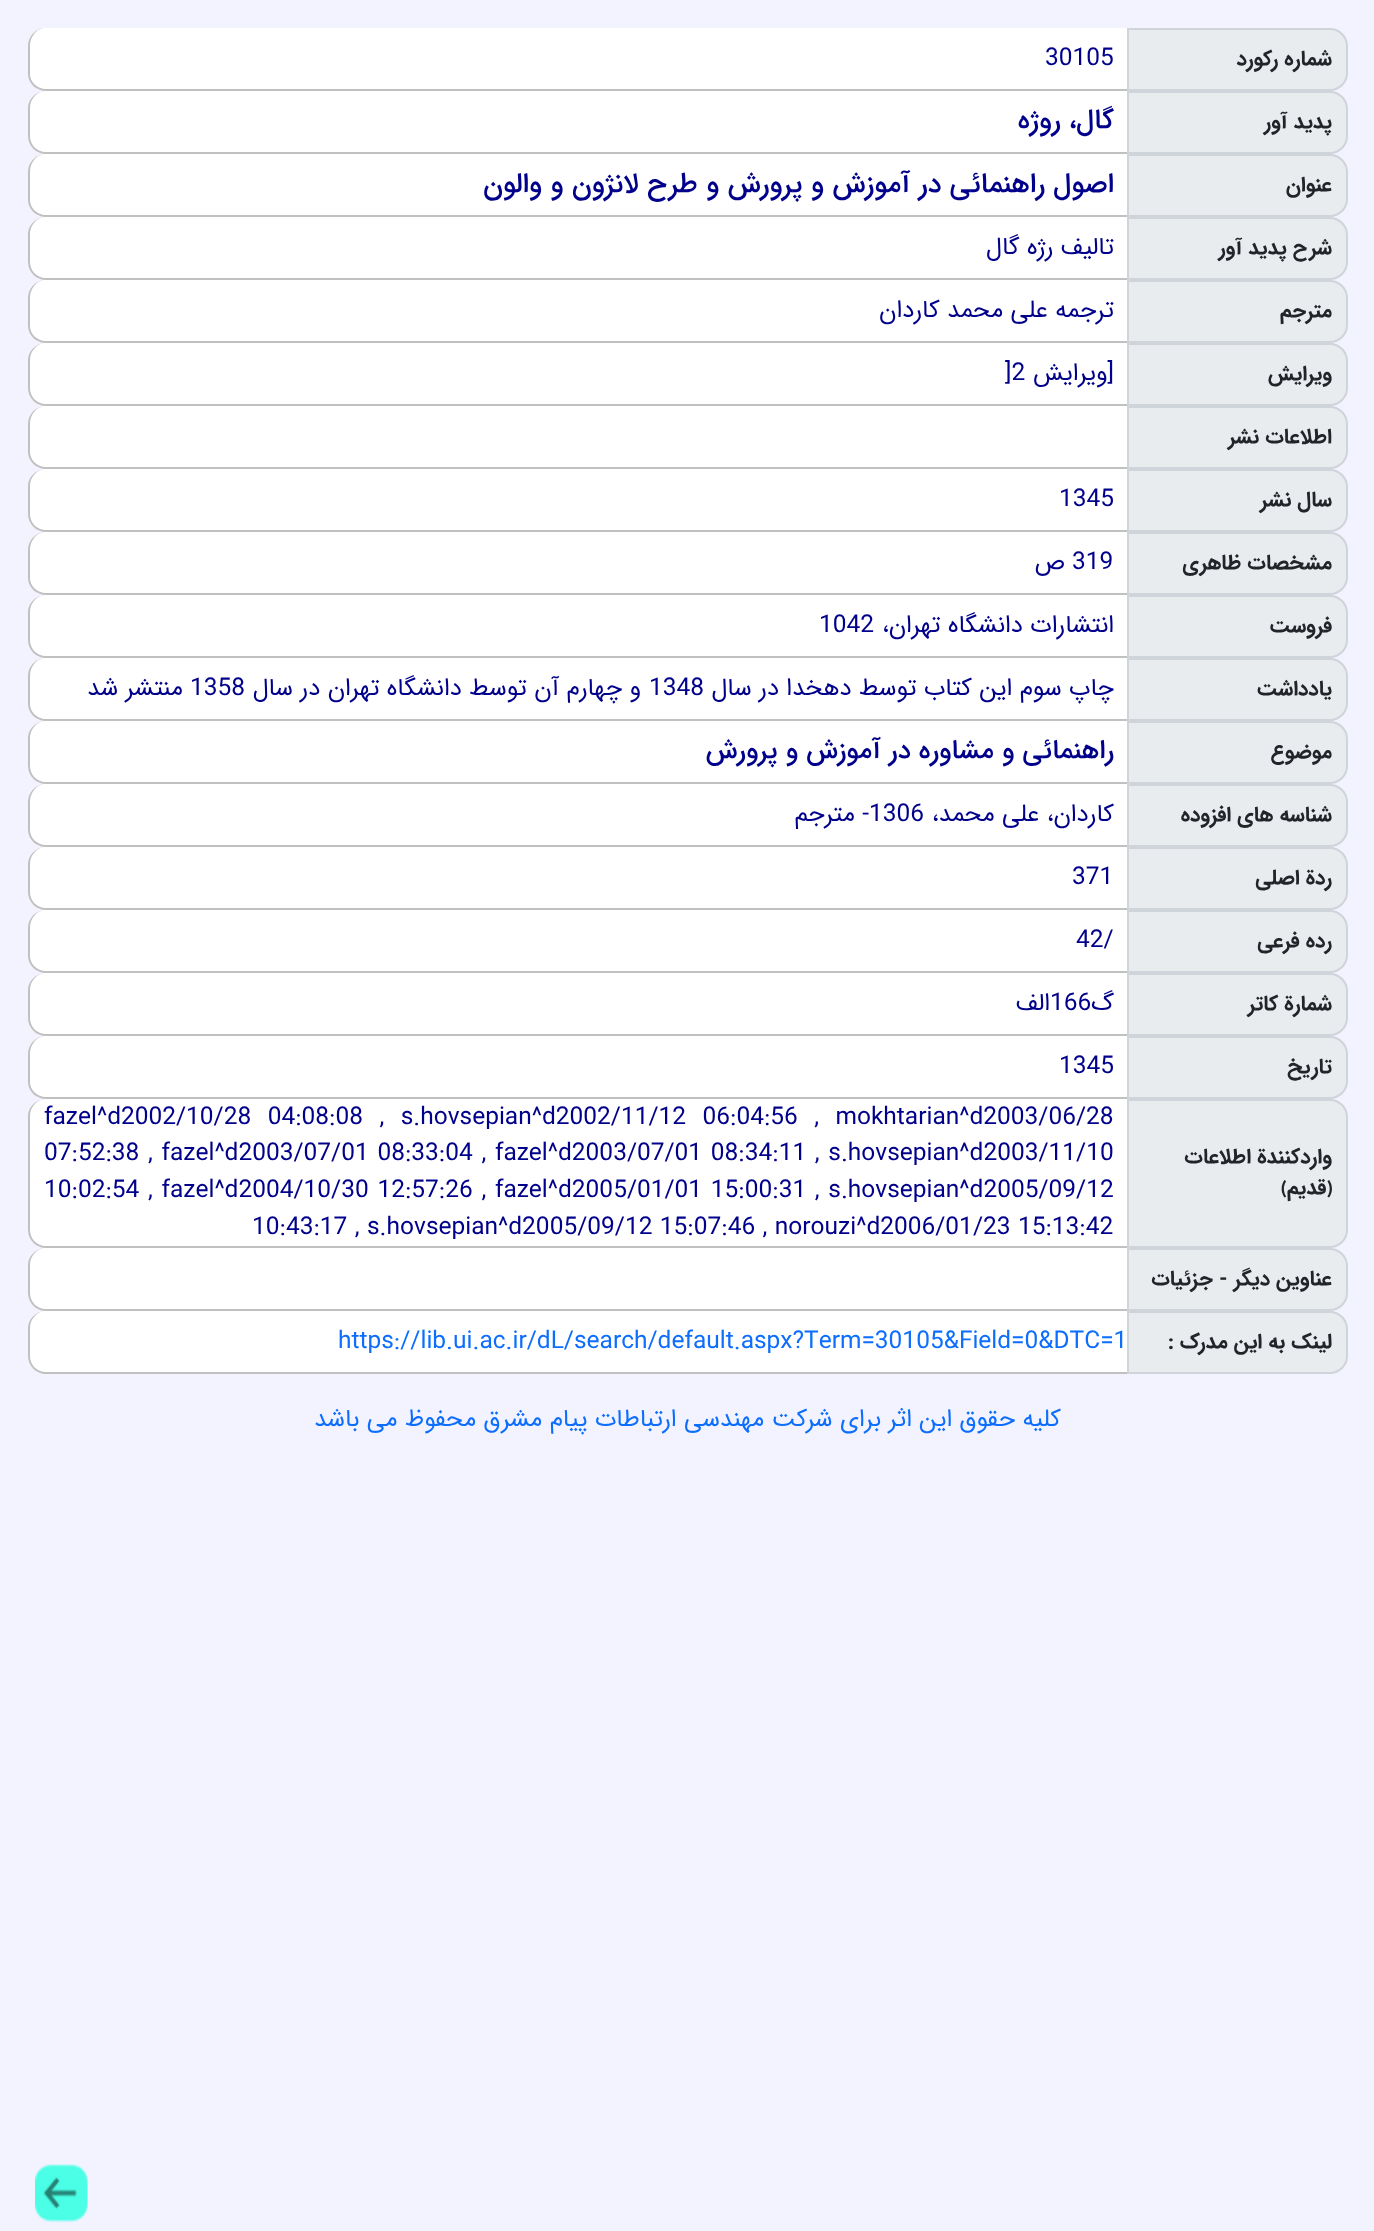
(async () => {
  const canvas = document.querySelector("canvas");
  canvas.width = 1374;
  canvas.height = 2231;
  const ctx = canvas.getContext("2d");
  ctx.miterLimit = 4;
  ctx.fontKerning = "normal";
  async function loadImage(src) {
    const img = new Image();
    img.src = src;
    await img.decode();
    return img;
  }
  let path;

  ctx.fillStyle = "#f3f3ff";
  ctx.fillRect(0, 0, 1374, 2231);
  ctx.fillStyle = "#e9ecef";
  ctx.beginPath();
  ctx.roundRect(1128, 29, 219, 61, [0, 17, 17, 0]);
  ctx.fill();
  ctx.strokeStyle = "#ced4da";
  ctx.lineWidth = 2;
  ctx.stroke();
  ctx.fillStyle = "#ffffff";
  ctx.beginPath();
  ctx.roundRect(28, 28, 1099, 63, [18, 0, 0, 18]);
  ctx.fill();
  ctx.fillStyle = "#c0c0c0";
  path = new Path2D("M46 28H1127V91H46C36 91 28 83 28 74V46C28 36 36 28 46 28ZM46 28H1127V89H46C37 89 30 82 30 74V46C30 36 37 28 46 28Z");
  ctx.fill(path, "evenodd");
  ctx.fillStyle = "#e9ecef";
  ctx.beginPath();
  ctx.roundRect(1128, 92, 219, 61, [0, 17, 17, 0]);
  ctx.fill();
  ctx.stroke();
  ctx.fillStyle = "#ffffff";
  ctx.beginPath();
  ctx.roundRect(28, 91, 1099, 63, [18, 0, 0, 18]);
  ctx.fill();
  ctx.fillStyle = "#c0c0c0";
  path = new Path2D("M46 91H1127V154H46C36 154 28 146 28 136V108C28 99 36 91 46 91ZM46 91H1127V152H46C37 152 30 145 30 136V108C30 99 37 91 46 91Z");
  ctx.fill(path, "evenodd");
  ctx.fillStyle = "#e9ecef";
  ctx.beginPath();
  ctx.roundRect(1128, 155, 219, 61, [0, 17, 17, 0]);
  ctx.fill();
  ctx.stroke();
  ctx.fillStyle = "#ffffff";
  ctx.beginPath();
  ctx.roundRect(28, 154, 1099, 63, [18, 0, 0, 18]);
  ctx.fill();
  ctx.fillStyle = "#c0c0c0";
  path = new Path2D("M46 154H1127V217H46C36 217 28 209 28 200V172C28 162 36 154 46 154ZM46 154H1127V215H46C37 215 30 208 30 200V172C30 162 37 154 46 154Z");
  ctx.fill(path, "evenodd");
  ctx.fillStyle = "#e9ecef";
  ctx.beginPath();
  ctx.roundRect(1128, 218, 219, 61, [0, 17, 17, 0]);
  ctx.fill();
  ctx.stroke();
  ctx.fillStyle = "#ffffff";
  ctx.beginPath();
  ctx.roundRect(28, 217, 1099, 63, [18, 0, 0, 18]);
  ctx.fill();
  ctx.fillStyle = "#c0c0c0";
  path = new Path2D("M46 217H1127V280H46C36 280 28 272 28 262V234C28 225 36 217 46 217ZM46 217H1127V278H46C37 278 30 271 30 262V234C30 225 37 217 46 217Z");
  ctx.fill(path, "evenodd");
  ctx.fillStyle = "#e9ecef";
  ctx.beginPath();
  ctx.roundRect(1128, 281, 219, 61, [0, 17, 17, 0]);
  ctx.fill();
  ctx.stroke();
  ctx.fillStyle = "#ffffff";
  ctx.beginPath();
  ctx.roundRect(28, 280, 1099, 63, [18, 0, 0, 18]);
  ctx.fill();
  ctx.fillStyle = "#c0c0c0";
  path = new Path2D("M46 280H1127V343H46C36 343 28 335 28 326V298C28 288 36 280 46 280ZM46 280H1127V341H46C37 341 30 334 30 326V298C30 288 37 280 46 280Z");
  ctx.fill(path, "evenodd");
  ctx.fillStyle = "#e9ecef";
  ctx.beginPath();
  ctx.roundRect(1128, 344, 219, 61, [0, 17, 17, 0]);
  ctx.fill();
  ctx.stroke();
  ctx.fillStyle = "#ffffff";
  ctx.beginPath();
  ctx.roundRect(28, 343, 1099, 63, [18, 0, 0, 18]);
  ctx.fill();
  ctx.fillStyle = "#c0c0c0";
  path = new Path2D("M46 343H1127V406H46C36 406 28 398 28 388V360C28 351 36 343 46 343ZM46 343H1127V404H46C37 404 30 397 30 388V360C30 351 37 343 46 343Z");
  ctx.fill(path, "evenodd");
  ctx.fillStyle = "#e9ecef";
  ctx.beginPath();
  ctx.roundRect(1128, 407, 219, 61, [0, 17, 17, 0]);
  ctx.fill();
  ctx.stroke();
  ctx.fillStyle = "#ffffff";
  ctx.beginPath();
  ctx.roundRect(28, 406, 1099, 63, [18, 0, 0, 18]);
  ctx.fill();
  ctx.fillStyle = "#c0c0c0";
  path = new Path2D("M46 406H1127V469H46C36 469 28 461 28 452V424C28 414 36 406 46 406ZM46 406H1127V467H46C37 467 30 460 30 452V424C30 414 37 406 46 406Z");
  ctx.fill(path, "evenodd");
  ctx.fillStyle = "#e9ecef";
  ctx.beginPath();
  ctx.roundRect(1128, 470, 219, 61, [0, 17, 17, 0]);
  ctx.fill();
  ctx.stroke();
  ctx.fillStyle = "#ffffff";
  ctx.beginPath();
  ctx.roundRect(28, 469, 1099, 63, [18, 0, 0, 18]);
  ctx.fill();
  ctx.fillStyle = "#c0c0c0";
  path = new Path2D("M46 469H1127V532H46C36 532 28 524 28 514V486C28 477 36 469 46 469ZM46 469H1127V530H46C37 530 30 523 30 514V486C30 477 37 469 46 469Z");
  ctx.fill(path, "evenodd");
  ctx.fillStyle = "#e9ecef";
  ctx.beginPath();
  ctx.roundRect(1128, 533, 219, 61, [0, 17, 17, 0]);
  ctx.fill();
  ctx.stroke();
  ctx.fillStyle = "#ffffff";
  ctx.beginPath();
  ctx.roundRect(28, 532, 1099, 63, [18, 0, 0, 18]);
  ctx.fill();
  ctx.fillStyle = "#c0c0c0";
  path = new Path2D("M46 532H1127V595H46C36 595 28 587 28 578V550C28 540 36 532 46 532ZM46 532H1127V593H46C37 593 30 586 30 578V550C30 540 37 532 46 532Z");
  ctx.fill(path, "evenodd");
  ctx.fillStyle = "#e9ecef";
  ctx.beginPath();
  ctx.roundRect(1128, 596, 219, 61, [0, 17, 17, 0]);
  ctx.fill();
  ctx.stroke();
  ctx.fillStyle = "#ffffff";
  ctx.beginPath();
  ctx.roundRect(28, 595, 1099, 63, [18, 0, 0, 18]);
  ctx.fill();
  ctx.fillStyle = "#c0c0c0";
  path = new Path2D("M46 595H1127V658H46C36 658 28 650 28 640V612C28 603 36 595 46 595ZM46 595H1127V656H46C37 656 30 649 30 640V612C30 603 37 595 46 595Z");
  ctx.fill(path, "evenodd");
  ctx.fillStyle = "#e9ecef";
  ctx.beginPath();
  ctx.roundRect(1128, 659, 219, 61, [0, 17, 17, 0]);
  ctx.fill();
  ctx.stroke();
  ctx.fillStyle = "#ffffff";
  ctx.beginPath();
  ctx.roundRect(28, 658, 1099, 63, [18, 0, 0, 18]);
  ctx.fill();
  ctx.fillStyle = "#c0c0c0";
  path = new Path2D("M46 658H1127V721H46C36 721 28 713 28 704V676C28 666 36 658 46 658ZM46 658H1127V719H46C37 719 30 712 30 704V676C30 666 37 658 46 658Z");
  ctx.fill(path, "evenodd");
  ctx.fillStyle = "#e9ecef";
  ctx.beginPath();
  ctx.roundRect(1128, 722, 219, 61, [0, 17, 17, 0]);
  ctx.fill();
  ctx.stroke();
  ctx.fillStyle = "#ffffff";
  ctx.beginPath();
  ctx.roundRect(28, 721, 1099, 63, [18, 0, 0, 18]);
  ctx.fill();
  ctx.fillStyle = "#c0c0c0";
  path = new Path2D("M46 721H1127V784H46C36 784 28 776 28 766V738C28 729 36 721 46 721ZM46 721H1127V782H46C37 782 30 775 30 766V738C30 729 37 721 46 721Z");
  ctx.fill(path, "evenodd");
  ctx.fillStyle = "#e9ecef";
  ctx.beginPath();
  ctx.roundRect(1128, 785, 219, 61, [0, 17, 17, 0]);
  ctx.fill();
  ctx.stroke();
  ctx.fillStyle = "#ffffff";
  ctx.beginPath();
  ctx.roundRect(28, 784, 1099, 63, [18, 0, 0, 18]);
  ctx.fill();
  ctx.fillStyle = "#c0c0c0";
  path = new Path2D("M46 784H1127V847H46C36 847 28 839 28 830V802C28 792 36 784 46 784ZM46 784H1127V845H46C37 845 30 838 30 830V802C30 792 37 784 46 784Z");
  ctx.fill(path, "evenodd");
  ctx.fillStyle = "#e9ecef";
  ctx.beginPath();
  ctx.roundRect(1128, 848, 219, 61, [0, 17, 17, 0]);
  ctx.fill();
  ctx.stroke();
  ctx.fillStyle = "#ffffff";
  ctx.beginPath();
  ctx.roundRect(28, 847, 1099, 63, [18, 0, 0, 18]);
  ctx.fill();
  ctx.fillStyle = "#c0c0c0";
  path = new Path2D("M46 847H1127V910H46C36 910 28 902 28 892V864C28 855 36 847 46 847ZM46 847H1127V908H46C37 908 30 901 30 892V864C30 855 37 847 46 847Z");
  ctx.fill(path, "evenodd");
  ctx.fillStyle = "#e9ecef";
  ctx.beginPath();
  ctx.roundRect(1128, 911, 219, 61, [0, 17, 17, 0]);
  ctx.fill();
  ctx.stroke();
  ctx.fillStyle = "#ffffff";
  ctx.beginPath();
  ctx.roundRect(28, 910, 1099, 63, [18, 0, 0, 18]);
  ctx.fill();
  ctx.fillStyle = "#c0c0c0";
  path = new Path2D("M46 910H1127V973H46C36 973 28 965 28 956V928C28 918 36 910 46 910ZM46 910H1127V971H46C37 971 30 964 30 956V928C30 918 37 910 46 910Z");
  ctx.fill(path, "evenodd");
  ctx.fillStyle = "#e9ecef";
  ctx.beginPath();
  ctx.roundRect(1128, 974, 219, 61, [0, 17, 17, 0]);
  ctx.fill();
  ctx.stroke();
  ctx.fillStyle = "#ffffff";
  ctx.beginPath();
  ctx.roundRect(28, 973, 1099, 63, [18, 0, 0, 18]);
  ctx.fill();
  ctx.fillStyle = "#c0c0c0";
  path = new Path2D("M46 973H1127V1036H46C36 1036 28 1028 28 1018V990C28 981 36 973 46 973ZM46 973H1127V1034H46C37 1034 30 1027 30 1018V990C30 981 37 973 46 973Z");
  ctx.fill(path, "evenodd");
  ctx.fillStyle = "#e9ecef";
  ctx.beginPath();
  ctx.roundRect(1128, 1037, 219, 61, [0, 17, 17, 0]);
  ctx.fill();
  ctx.stroke();
  ctx.fillStyle = "#ffffff";
  ctx.beginPath();
  ctx.roundRect(28, 1036, 1099, 63, [18, 0, 0, 18]);
  ctx.fill();
  ctx.fillStyle = "#c0c0c0";
  path = new Path2D("M46 1036H1127V1099H46C36 1099 28 1091 28 1082V1054C28 1044 36 1036 46 1036ZM46 1036H1127V1097H46C37 1097 30 1090 30 1082V1054C30 1044 37 1036 46 1036Z");
  ctx.fill(path, "evenodd");
  ctx.fillStyle = "#e9ecef";
  ctx.beginPath();
  ctx.roundRect(1128, 1100, 219, 147, [0, 17, 17, 0]);
  ctx.fill();
  ctx.stroke();
  ctx.fillStyle = "#ffffff";
  ctx.beginPath();
  ctx.roundRect(28, 1099, 1099, 149, [18, 0, 0, 18]);
  ctx.fill();
  ctx.fillStyle = "#c0c0c0";
  path = new Path2D("M46 1099H1127V1248H46C36 1248 28 1240 28 1230V1116C28 1107 36 1099 46 1099ZM46 1099H1127V1246H46C37 1246 30 1239 30 1230V1116C30 1107 37 1099 46 1099Z");
  ctx.fill(path, "evenodd");
  ctx.fillStyle = "#e9ecef";
  ctx.beginPath();
  ctx.roundRect(1128, 1249, 219, 61, [0, 17, 17, 0]);
  ctx.fill();
  ctx.stroke();
  ctx.fillStyle = "#ffffff";
  ctx.beginPath();
  ctx.roundRect(28, 1248, 1099, 63, [18, 0, 0, 18]);
  ctx.fill();
  ctx.fillStyle = "#c0c0c0";
  path = new Path2D("M46 1248H1127V1311H46C36 1311 28 1303 28 1293V1265C28 1256 36 1248 46 1248ZM46 1248H1127V1309H46C37 1309 30 1302 30 1293V1265C30 1256 37 1248 46 1248Z");
  ctx.fill(path, "evenodd");
  ctx.fillStyle = "#e9ecef";
  ctx.beginPath();
  ctx.roundRect(1128, 1312, 219, 61, [0, 17, 17, 0]);
  ctx.fill();
  ctx.stroke();
  ctx.fillStyle = "#ffffff";
  ctx.beginPath();
  ctx.roundRect(28, 1311, 1099, 63, [18, 0, 0, 18]);
  ctx.fill();
  ctx.fillStyle = "#c0c0c0";
  path = new Path2D("M46 1311H1127V1374H46C36 1374 28 1366 28 1356V1328C28 1319 36 1311 46 1311ZM46 1311H1127V1372H46C37 1372 30 1365 30 1356V1328C30 1319 37 1311 46 1311Z");
  ctx.fill(path, "evenodd");
  ctx.drawImage(await loadImage("img/1.png"), 35, 2164, 53, 59);
  ctx.direction = "rtl";
  ctx.font = "bold 21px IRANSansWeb";
  ctx.fillStyle = "#212529";
  ctx.fillText("شماره ركورد", 1332, 65);
  ctx.direction = "ltr";
  ctx.font = "24.5px IRANSansWeb";
  ctx.fillStyle = "#00008b";
  ctx.fillText("30105", 1045, 65);
  ctx.direction = "rtl";
  ctx.font = "bold 21px IRANSansWeb";
  ctx.fillStyle = "#212529";
  ctx.fillText("پديد آور", 1332, 128);
  ctx.font = "500 27.5px IRANSansWeb";
  ctx.fillStyle = "#00008b";
  ctx.fillText("گال، روژه", 1114, 128);
  ctx.font = "bold 21px IRANSansWeb";
  ctx.fillStyle = "#212529";
  ctx.fillText("عنوان", 1332, 191);
  ctx.font = "500 27.9px IRANSansWeb";
  ctx.fillStyle = "#00008b";
  ctx.fillText("اصول راهنمائي در آموزش و پرورش و طرح لانژون و والون", 1114, 192);
  ctx.font = "bold 21px IRANSansWeb";
  ctx.fillStyle = "#212529";
  ctx.fillText("شرح پديد آور", 1332, 254);
  ctx.font = "24.5px IRANSansWeb";
  ctx.fillStyle = "#00008b";
  ctx.fillText("تاليف رژه گال", 1114, 254);
  ctx.font = "bold 21px IRANSansWeb";
  ctx.fillStyle = "#212529";
  ctx.fillText("مترجم", 1332, 317);
  ctx.font = "24.5px IRANSansWeb";
  ctx.fillStyle = "#00008b";
  ctx.fillText("ترجمه علي محمد كاردان", 1114, 317);
  ctx.font = "bold 21px IRANSansWeb";
  ctx.fillStyle = "#212529";
  ctx.fillText("ويرايش", 1332, 380);
  ctx.font = "24.5px IRANSansWeb";
  ctx.fillStyle = "#00008b";
  ctx.fillText("[ويرايش", 1114, 380);
  ctx.direction = "ltr";
  ctx.fillText("]2", 1005, 380);
  ctx.direction = "rtl";
  ctx.font = "bold 21px IRANSansWeb";
  ctx.fillStyle = "#212529";
  ctx.fillText("اطلاعات نشر", 1332, 443);
  ctx.fillText("سال نشر", 1332, 506);
  ctx.direction = "ltr";
  ctx.font = "24.5px IRANSansWeb";
  ctx.fillStyle = "#00008b";
  ctx.fillText("1345", 1059, 506);
  ctx.direction = "rtl";
  ctx.font = "bold 21px IRANSansWeb";
  ctx.fillStyle = "#212529";
  ctx.fillText("مشخصات ظاهري", 1332, 569);
  ctx.direction = "ltr";
  ctx.font = "24.5px IRANSansWeb";
  ctx.fillStyle = "#00008b";
  ctx.fillText("319", 1072, 569);
  ctx.direction = "rtl";
  ctx.fillText("ص", 1065, 569);
  ctx.font = "bold 21px IRANSansWeb";
  ctx.fillStyle = "#212529";
  ctx.fillText("فروست", 1332, 632);
  ctx.font = "24.5px IRANSansWeb";
  ctx.fillStyle = "#00008b";
  ctx.fillText("انتشارات دانشگاه تهران،", 1114, 632);
  ctx.direction = "ltr";
  ctx.fillText("1042", 819, 632);
  ctx.direction = "rtl";
  ctx.font = "bold 21px IRANSansWeb";
  ctx.fillStyle = "#212529";
  ctx.fillText("يادداشت", 1332, 695);
  ctx.font = "24.5px IRANSansWeb";
  ctx.fillStyle = "#00008b";
  ctx.fillText("چاپ سوم اين كتاب توسط دهخدا در سال", 1114, 695);
  ctx.direction = "ltr";
  ctx.fillText("1348", 649, 695);
  ctx.direction = "rtl";
  ctx.fillText("و چهارم آن توسط دانشگاه تهران در سال", 641, 695);
  ctx.direction = "ltr";
  ctx.fillText("1358", 190, 695);
  ctx.direction = "rtl";
  ctx.fillText("منتشر شد", 183, 695);
  ctx.font = "bold 21px IRANSansWeb";
  ctx.fillStyle = "#212529";
  ctx.fillText("موضوع", 1332, 758);
  ctx.font = "500 26.75px IRANSansWeb";
  ctx.fillStyle = "#00008b";
  ctx.fillText("راهنمائي و مشاوره در آموزش و پرورش", 1114, 758);
  ctx.font = "bold 21px IRANSansWeb";
  ctx.fillStyle = "#212529";
  ctx.fillText("شناسه هاي افزوده", 1332, 821);
  ctx.font = "24.5px IRANSansWeb";
  ctx.fillStyle = "#00008b";
  ctx.fillText("كاردان، علي محمد،", 1114, 821);
  ctx.direction = "ltr";
  ctx.fillText("1306", 869, 821);
  ctx.direction = "rtl";
  ctx.fillText("- مترجم", 869, 821);
  ctx.font = "bold 21px IRANSansWeb";
  ctx.fillStyle = "#212529";
  ctx.fillText("ردة اصلي", 1332, 884);
  ctx.direction = "ltr";
  ctx.font = "24.5px IRANSansWeb";
  ctx.fillStyle = "#00008b";
  ctx.fillText("371", 1072, 884);
  ctx.direction = "rtl";
  ctx.font = "bold 21px IRANSansWeb";
  ctx.fillStyle = "#212529";
  ctx.fillText("رده فرعي", 1332, 947);
  ctx.direction = "ltr";
  ctx.font = "24.5px IRANSansWeb";
  ctx.fillStyle = "#00008b";
  ctx.fillText("42/", 1076, 947);
  ctx.direction = "rtl";
  ctx.font = "bold 21px IRANSansWeb";
  ctx.fillStyle = "#212529";
  ctx.fillText("شمارة كاتر", 1332, 1010);
  ctx.font = "24.5px IRANSansWeb";
  ctx.fillStyle = "#00008b";
  ctx.fillText("گ", 1114, 1010);
  ctx.direction = "ltr";
  ctx.fillText("166", 1050, 1010);
  ctx.direction = "rtl";
  ctx.fillText("الف", 1050, 1010);
  ctx.font = "bold 21px IRANSansWeb";
  ctx.fillStyle = "#212529";
  ctx.fillText("تاريخ", 1332, 1073);
  ctx.direction = "ltr";
  ctx.font = "24.5px IRANSansWeb";
  ctx.fillStyle = "#00008b";
  ctx.fillText("1345", 1059, 1073);
  ctx.direction = "rtl";
  ctx.font = "bold 21px IRANSansWeb";
  ctx.fillStyle = "#212529";
  ctx.fillText("واردكنندة اطلاعات", 1332, 1163);
  ctx.fillText("﴿قديم﴾", 1332, 1194);
  ctx.wordSpacing = "9px";
  ctx.direction = "ltr";
  ctx.font = "24.5px IRANSansWeb";
  ctx.fillStyle = "#00008b";
  ctx.fillText("fazel^d2002/10/28 04:08:08 , s.hovsepian^d2002/11/12 06:04:56 , mokhtarian^d2003/06/28", 44, 1124);
  ctx.wordSpacing = "1.25px";
  ctx.fillText("07:52:38 , fazel^d2003/07/01 08:33:04 , fazel^d2003/07/01 08:34:11 , s.hovsepian^d2003/11/10", 44, 1160);
  ctx.fillText("10:02:54 , fazel^d2004/10/30 12:57:26 , fazel^d2005/01/01 15:00:31 , s.hovsepian^d2005/09/12", 44, 1197);
  ctx.wordSpacing = "0px";
  ctx.fillText("10:43:17 , s.hovsepian^d2005/09/12 15:07:46 , norouzi^d2006/01/23 15:13:42", 252, 1234);
  ctx.direction = "rtl";
  ctx.font = "bold 21px IRANSansWeb";
  ctx.fillStyle = "#212529";
  ctx.fillText("عناوين ديگر - جزئيات", 1332, 1285);
  ctx.fillText("لينک به اين مدرک :", 1332, 1348);
  ctx.direction = "ltr";
  ctx.font = "24.5px IRANSansWeb";
  ctx.fillStyle = "#0d6efd";
  ctx.fillText("https://lib.ui.ac.ir/dL/search/default.aspx?Term=30105&Field=0&DTC=1", 338, 1348);
  ctx.direction = "rtl";
  ctx.fillText("کلیه حقوق این اثر برای شرکت مهندسی ارتباطات پيام مشرق محفوظ می باشد", 1061, 1426);
})();
